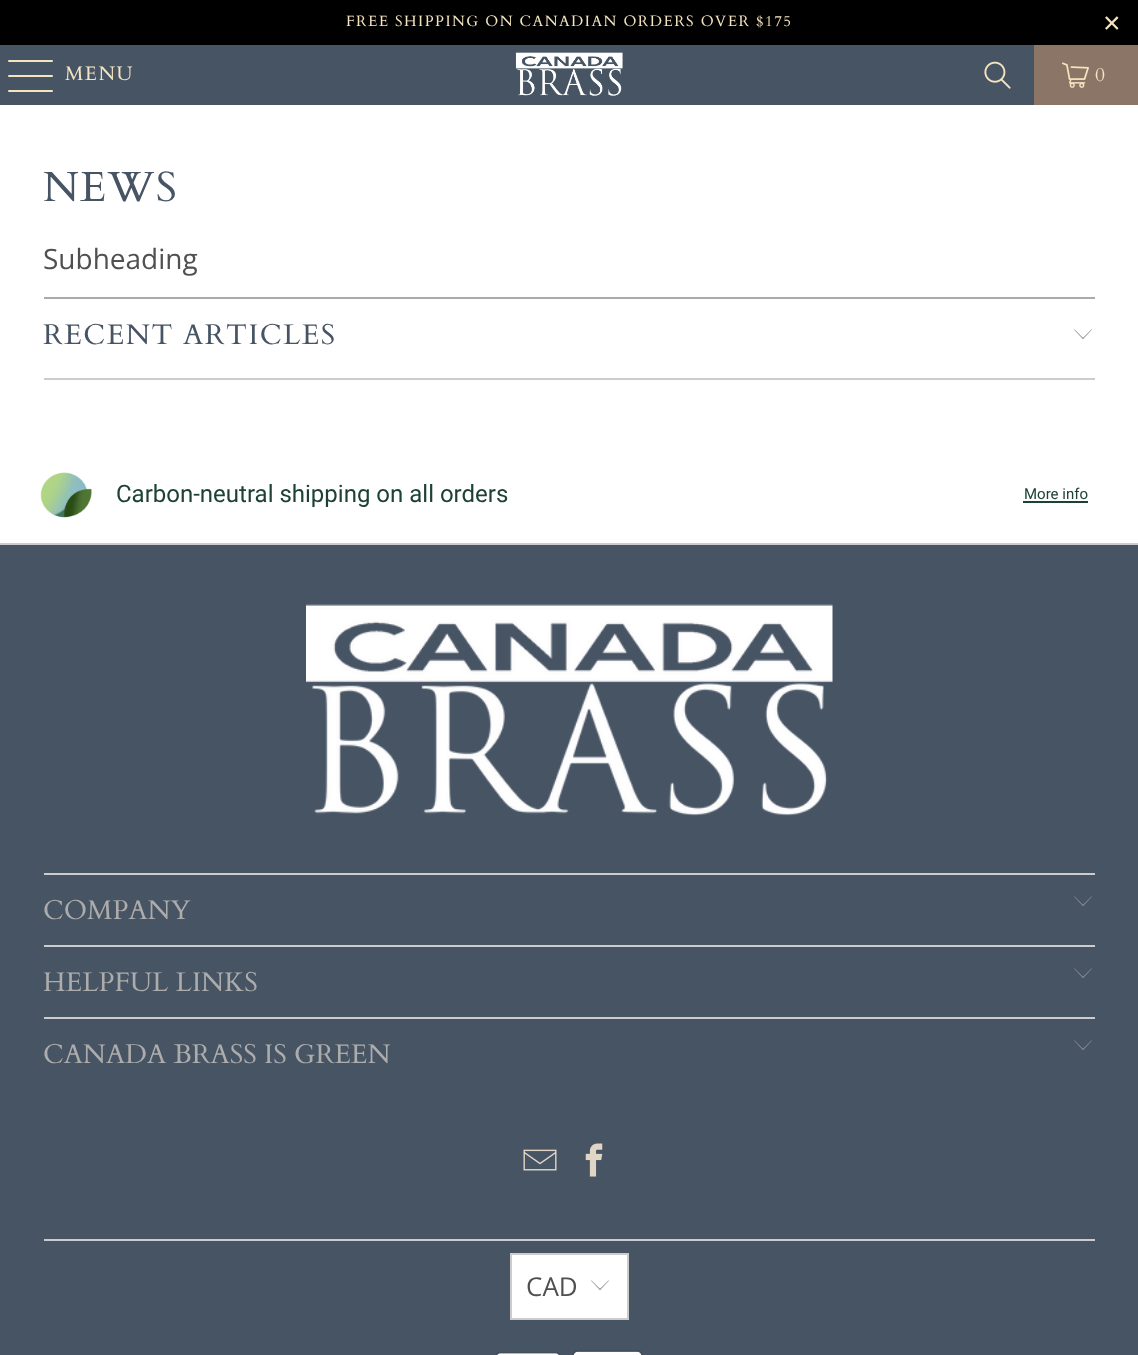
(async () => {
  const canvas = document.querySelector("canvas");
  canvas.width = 1138;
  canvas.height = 1355;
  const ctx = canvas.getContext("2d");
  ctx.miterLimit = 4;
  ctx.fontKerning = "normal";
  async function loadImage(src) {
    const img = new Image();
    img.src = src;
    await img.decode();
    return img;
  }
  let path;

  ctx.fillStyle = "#ffffff";
  ctx.fillRect(0, 0, 1138, 1355);
  ctx.fillStyle = "#000000";
  ctx.fillRect(0, 0, 1138, 45);
  ctx.fillStyle = "#475464";
  ctx.fillRect(0, 45, 1034, 60);
  ctx.fillStyle = "#f4e4bf";
  ctx.beginPath();
  ctx.roundRect(8, 60, 45, 2, 1);
  ctx.fill();
  ctx.beginPath();
  ctx.roundRect(8, 75, 45, 2, 1);
  ctx.fill();
  ctx.beginPath();
  ctx.roundRect(8, 90, 45, 2, 1);
  ctx.fill();
  ctx.drawImage(await loadImage("img/1.png"), 515, 52, 108, 44);
  ctx.drawImage(await loadImage("img/2.png"), 984, 61, 27, 28);
  ctx.fillStyle = "#8a7567";
  ctx.fillRect(1034, 45, 104, 60);
  ctx.drawImage(await loadImage("img/3.png"), 1062, 62, 27, 26);
  ctx.fillStyle = "#aaaaaa";
  ctx.fillRect(44, 297, 1051, 2);
  ctx.fillStyle = "#475464";
  path = new Path2D("M1083 339L1074 329.5H1074.5L1083 338L1091.5 329.5H1092Z");
  ctx.fill(path);
  ctx.fillStyle = "#cccccc";
  ctx.fillRect(44, 378, 1051, 2);
  ctx.drawImage(await loadImage("img/4.png"), 40, 472, 52, 46);
  for (const [x, y, w, h, color] of [
    [1023, 501, 65, 2, "#1d4136"],
    [0, 545, 1138, 810, "#475464"],
    [0, 543, 1138, 2, "#cccccc"],
  ]) {
    ctx.fillStyle = color;
    ctx.fillRect(x, y, w, h);
  }
  ctx.drawImage(await loadImage("img/5.png"), 306, 604, 527, 212);
  ctx.fillRect(44, 873, 1051, 2);
  ctx.fillStyle = "#acacac";
  path = new Path2D("M1083 906L1074 896.5H1074.5L1083 905L1091.5 896.5H1092Z");
  ctx.fill(path);
  ctx.fillStyle = "#cccccc";
  ctx.fillRect(44, 945, 1051, 2);
  ctx.fillStyle = "#acacac";
  path = new Path2D("M1083 978L1074 968.5H1074.5L1083 977L1091.5 968.5H1092Z");
  ctx.fill(path);
  ctx.fillStyle = "#cccccc";
  ctx.fillRect(44, 1017, 1051, 2);
  ctx.fillStyle = "#acacac";
  path = new Path2D("M1083 1050L1074 1040.5H1074.5L1083 1049L1091.5 1040.5H1092Z");
  ctx.fill(path);
  ctx.drawImage(await loadImage("img/6.png"), 523, 1149, 34, 22);
  ctx.drawImage(await loadImage("img/7.png"), 585, 1143, 18, 34);
  ctx.fillStyle = "#cccccc";
  ctx.fillRect(44, 1239, 1051, 2);
  ctx.fillStyle = "#ffffff";
  ctx.beginPath();
  ctx.rect(511, 1254, 117, 65);
  ctx.fill();
  ctx.strokeStyle = "#cccccc";
  ctx.lineWidth = 2;
  ctx.stroke();
  ctx.fillStyle = "#505050";
  path = new Path2D("M600 1290L591 1280.5H591.5L600 1289L608.5 1280.5H609Z");
  ctx.fill(path);
  ctx.drawImage(await loadImage("img/8.png"), 496, 1352, 64, 3);
  ctx.drawImage(await loadImage("img/9.png"), 572, 1350, 71, 5);
  ctx.letterSpacing = "1.5px";
  ctx.font = "15px Cardo";
  ctx.fillStyle = "#f4e4bf";
  ctx.fillText("FREE SHIPPING ON CANADIAN ORDERS OVER $175", 346, 26);
  ctx.font = "30px Liberation Sans";
  ctx.fillText("×", 1103, 33);
  ctx.font = "19.5px Cardo";
  ctx.fillText("MENU", 65, 80);
  ctx.fillText("0", 1095, 81);
  ctx.font = "42px Cardo";
  ctx.fillStyle = "#475464";
  ctx.fillText("NEWS", 43, 201);
  ctx.letterSpacing = "0px";
  ctx.font = "28px Open Sans";
  ctx.fillStyle = "#505050";
  ctx.fillText("Subheading", 43, 269);
  ctx.letterSpacing = "1.5px";
  ctx.font = "28.5px Cardo";
  ctx.fillStyle = "#475464";
  ctx.fillText("RECENT ARTICLES", 43, 344);
  ctx.letterSpacing = "0px";
  ctx.font = "24px Roboto";
  ctx.fillStyle = "#1d4136";
  ctx.fillText("Carbon-neutral shipping on all orders", 116, 502);
  ctx.font = "15px Roboto";
  ctx.fillText("More info", 1024, 499);
  ctx.font = "27px Cardo";
  ctx.fillStyle = "#acacac";
  for (const [text, x, y] of [
    ["COMPANY", 43, 919],
    ["HELPFUL LINKS", 43, 991],
    ["CANADA BRASS IS GREEN", 43, 1063],
  ]) {
    ctx.fillText(text, x, y);
  }
  ctx.font = "26px Open Sans";
  ctx.fillStyle = "#505050";
  ctx.fillText("CAD", 526, 1296);
})();
